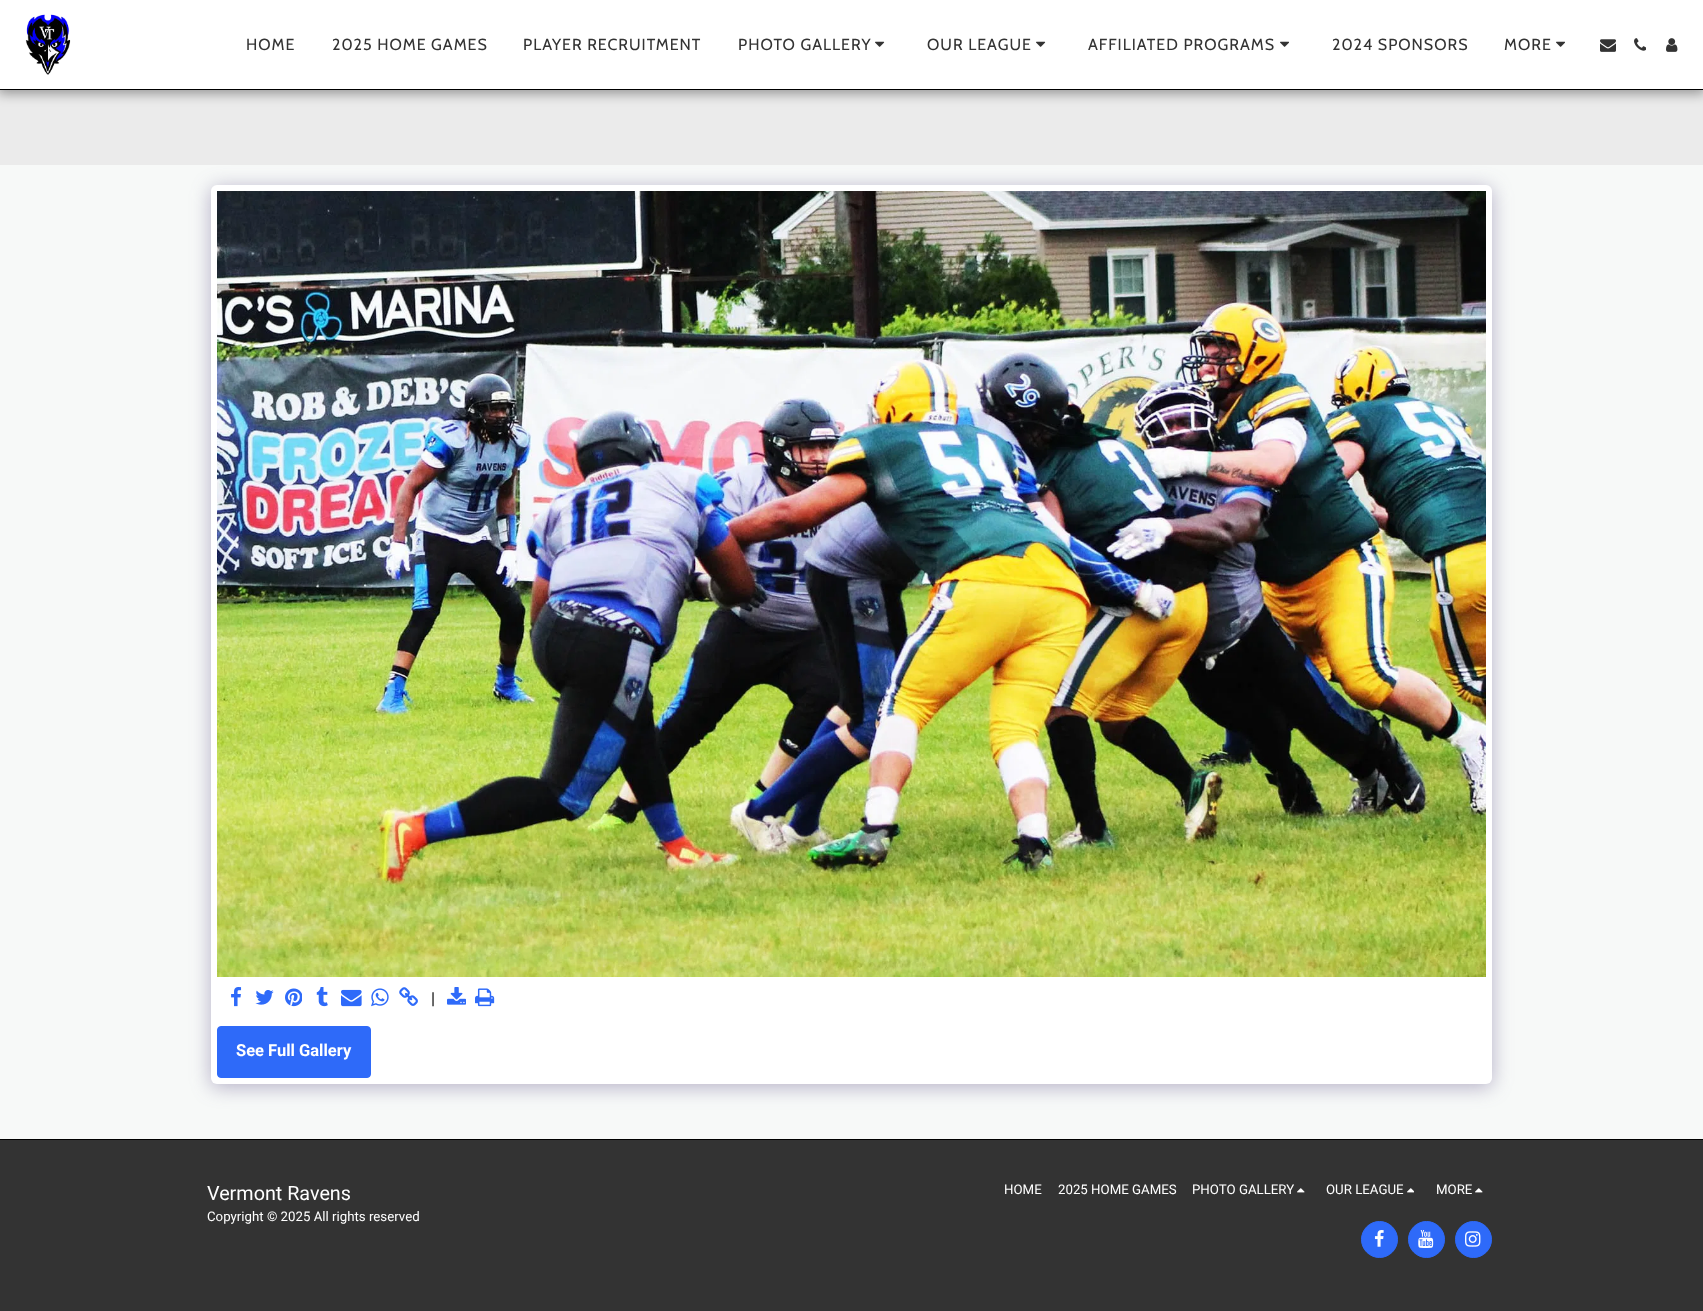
(async () => {
  const canvas = document.querySelector("canvas");
  canvas.width = 1703;
  canvas.height = 1311;
  const ctx = canvas.getContext("2d");
  ctx.miterLimit = 4;
  ctx.fontKerning = "normal";
  async function loadImage(src) {
    const img = new Image();
    img.src = src;
    await img.decode();
    return img;
  }

  ctx.fillStyle = "#f7f9f8";
  ctx.fillRect(0, 0, 1703, 1311);
  ctx.fillStyle = "#ebebeb";
  ctx.fillRect(0, 90, 1703, 75);
  ctx.fillStyle = "rgba(0, 0, 0, 0.35)";
  ctx.filter = "blur(6px)";
  ctx.beginPath();
  ctx.rect(-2, 0, 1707, 94);
  ctx.fill();
  ctx.filter = "none";
  ctx.fillStyle = "#ffffff";
  ctx.fillRect(0, 0, 1703, 89);
  ctx.fillStyle = "#000000";
  ctx.fillRect(0, 89, 1703, 1);
  ctx.drawImage(await loadImage("img/1.png"), 25, 14, 46, 61);
  ctx.drawImage(await loadImage("img/2.png"), 875, 41, 10, 6);
  ctx.drawImage(await loadImage("img/2.png"), 1036, 41, 10, 6);
  ctx.drawImage(await loadImage("img/3.png"), 1280, 41, 9, 6);
  ctx.drawImage(await loadImage("img/3.png"), 1556, 41, 9, 6);
  ctx.drawImage(await loadImage("img/4.png"), 1600, 39, 16, 13);
  ctx.drawImage(await loadImage("img/5.png"), 1634, 38, 12, 13);
  ctx.drawImage(await loadImage("img/6.png"), 1666, 38, 12, 14);
  ctx.fillStyle = "rgba(77, 63, 122, 0.4)";
  ctx.filter = "blur(10px)";
  ctx.beginPath();
  ctx.roundRect(211, 188, 1281, 899, 6);
  ctx.fill();
  ctx.filter = "none";
  ctx.fillStyle = "#ffffff";
  ctx.beginPath();
  ctx.roundRect(211, 185, 1281, 899, 6);
  ctx.fill();
  ctx.drawImage(await loadImage("img/7.png"), 217, 191, 1269, 786);
  ctx.drawImage(await loadImage("img/8.png"), 231, 987, 11, 20);
  ctx.drawImage(await loadImage("img/9.png"), 255, 990, 19, 15);
  ctx.drawImage(await loadImage("img/10.png"), 285, 988, 17, 19);
  ctx.drawImage(await loadImage("img/11.png"), 316, 987, 12, 20);
  ctx.drawImage(await loadImage("img/12.png"), 341, 989, 21, 18);
  ctx.drawImage(await loadImage("img/13.png"), 371, 988, 18, 19);
  ctx.drawImage(await loadImage("img/14.png"), 399, 987, 19, 19);
  ctx.drawImage(await loadImage("img/15.png"), 447, 987, 19, 18);
  ctx.drawImage(await loadImage("img/16.png"), 475, 988, 20, 19);
  ctx.fillStyle = "#2e6af9";
  ctx.beginPath();
  ctx.roundRect(217.5, 1026.5, 153, 51, 3.5);
  ctx.fill();
  ctx.strokeStyle = "#2e6af9";
  ctx.stroke();
  ctx.fillStyle = "#333333";
  ctx.fillRect(0, 1140, 1703, 171);
  ctx.fillStyle = "#000000";
  ctx.fillRect(0, 1139, 1703, 1);
  ctx.drawImage(await loadImage("img/17.png"), 1297, 1188, 8, 5);
  ctx.drawImage(await loadImage("img/18.png"), 1407, 1188, 7, 5);
  ctx.drawImage(await loadImage("img/17.png"), 1475, 1188, 8, 5);
  ctx.fillStyle = "#2e6af9";
  ctx.beginPath();
  ctx.arc(1379.5, 1239.5, 18, 0, Math.PI * 2);
  ctx.fill();
  ctx.stroke();
  ctx.drawImage(await loadImage("img/19.png"), 1374, 1230, 10, 17);
  ctx.beginPath();
  ctx.arc(1426.5, 1239.5, 18, 0, Math.PI * 2);
  ctx.fill();
  ctx.stroke();
  ctx.drawImage(await loadImage("img/20.png"), 1418, 1230, 16, 18);
  ctx.beginPath();
  ctx.arc(1473.5, 1239.5, 18, 0, Math.PI * 2);
  ctx.fill();
  ctx.stroke();
  ctx.drawImage(await loadImage("img/21.png"), 1465, 1231, 16, 16);
  ctx.letterSpacing = "1px";
  ctx.font = "16px Cabin";
  ctx.fillStyle = "#333333";
  for (const [text, x, y] of [
    ["HOME", 246, 50],
    ["2025 HOME GAMES", 332, 50],
    ["PLAYER RECRUITMENT", 523, 50],
    ["PHOTO GALLERY", 738, 50],
    ["OUR LEAGUE", 927, 50],
    ["AFFILIATED PROGRAMS", 1088, 50],
    ["2024 SPONSORS", 1332, 50],
    ["MORE", 1504, 50],
  ]) {
    ctx.fillText(text, x, y);
  }
  ctx.letterSpacing = "0px";
  ctx.font = "16.5px Roboto";
  ctx.fillStyle = "#000000";
  ctx.fillText("|", 431, 1004);
  ctx.font = "bold 16.5px Roboto";
  ctx.fillStyle = "#ffffff";
  ctx.fillText("See Full Gallery", 236, 1056);
  ctx.font = "19.75px Roboto";
  ctx.fillText("Vermont Ravens", 207, 1200);
  ctx.font = "13.25px Roboto";
  for (const [text, x, y] of [
    ["Copyright © 2025 All rights reserved", 207, 1221],
    ["HOME", 1004, 1194],
    ["2025 HOME GAMES", 1058, 1194],
    ["PHOTO GALLERY", 1192, 1194],
    ["OUR LEAGUE", 1326, 1194],
    ["MORE", 1436, 1194],
  ]) {
    ctx.fillText(text, x, y);
  }
})();
